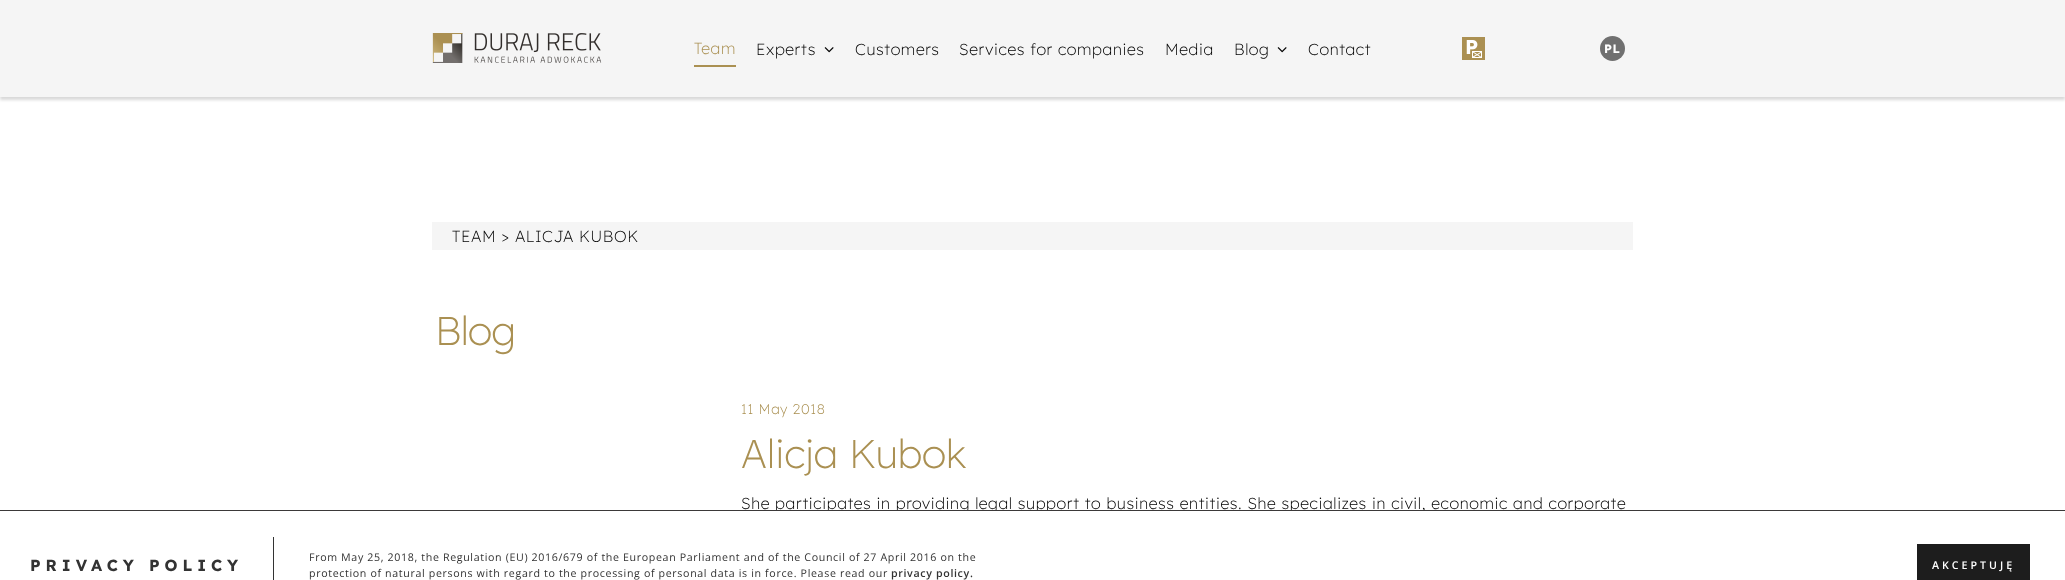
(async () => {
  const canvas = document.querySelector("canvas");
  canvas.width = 2065;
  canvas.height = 580;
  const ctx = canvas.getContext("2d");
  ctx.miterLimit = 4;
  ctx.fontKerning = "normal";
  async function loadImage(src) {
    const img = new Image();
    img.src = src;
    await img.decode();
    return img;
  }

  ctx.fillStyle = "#ffffff";
  ctx.fillRect(0, 0, 2065, 580);
  ctx.fillStyle = "rgba(0, 0, 0, 0.15)";
  ctx.filter = "blur(1.5px)";
  ctx.beginPath();
  ctx.rect(0, 3, 2065, 97);
  ctx.fill();
  ctx.filter = "none";
  ctx.fillStyle = "#f5f5f5";
  ctx.fillRect(0, 0, 2065, 97);
  ctx.drawImage(await loadImage("img/1.png"), 432, 33, 170, 30);
  ctx.fillStyle = "#aa9052";
  ctx.fillRect(694, 65, 42, 2);
  ctx.drawImage(await loadImage("img/2.png"), 824, 47, 10, 6);
  ctx.drawImage(await loadImage("img/2.png"), 1277, 47, 10, 6);
  ctx.drawImage(await loadImage("img/3.png"), 1462, 37, 23, 23);
  ctx.fillStyle = "#707070";
  ctx.beginPath();
  ctx.arc(1612.5, 48.5, 12.5, 0, Math.PI * 2);
  ctx.fill();
  for (const [x, y, w, h, color] of [
    [432, 222, 1201, 28, "#f5f5f5"],
    [273, 537, 1, 43, "#333333"],
    [1917, 544, 113, 36, "#1d1d1d"],
  ]) {
    ctx.fillStyle = color;
    ctx.fillRect(x, y, w, h);
  }
  ctx.letterSpacing = "0.64px";
  ctx.font = "200 16px Lexend Deca";
  ctx.fillStyle = "#aa9052";
  ctx.fillText("Team", 694, 54);
  ctx.fillStyle = "#000000";
  for (const [text, x, y] of [
    ["Experts", 756, 55],
    ["Customers", 855, 55],
    ["Services for companies", 959, 55],
    ["Media", 1165, 55],
    ["Blog", 1234, 55],
    ["Contact", 1308, 55],
  ]) {
    ctx.fillText(text, x, y);
  }
  ctx.font = "bold 12px Lexend Deca";
  ctx.fillStyle = "#ffffff";
  ctx.fillText("PL", 1604, 53);
  ctx.font = "200 16px Lexend Deca";
  ctx.fillStyle = "#000000";
  ctx.fillText("TEAM > ALICJA KUBOK", 452, 242);
  ctx.letterSpacing = "-0.5px";
  ctx.font = "200 40px Lexend Deca";
  ctx.fillStyle = "#aa9052";
  ctx.fillText("Blog", 435, 345);
  ctx.letterSpacing = "0.64px";
  ctx.font = "200 14px Lexend Deca";
  ctx.fillText("11 May 2018", 741, 414);
  ctx.letterSpacing = "0px";
  ctx.font = "200 40px Lexend Deca";
  ctx.fillText("Alicja Kubok", 741, 468);
  ctx.letterSpacing = "0.64px";
  ctx.font = "200 16px Lexend Deca";
  ctx.fillStyle = "#000000";
  ctx.fillText("She participates in providing legal support to business entities. She specializes in civil, economic and corporate", 741, 509);
  ctx.fillStyle = "#ffffff";
  ctx.fillRect(776, 511, 801, 2);
  ctx.fillStyle = "#3b3939";
  ctx.fillRect(0, 510, 2065, 1);
  ctx.letterSpacing = "5px";
  ctx.font = "bold 16px Lexend Deca";
  ctx.fillStyle = "#333333";
  ctx.fillText("PRIVACY POLICY", 30, 571);
  ctx.letterSpacing = "0.64px";
  ctx.font = "10.67px Open Sans";
  ctx.fillText("From May 25, 2018, the Regulation (EU) 2016/679 of the European Parliament and of the Council of 27 April 2016 on the", 309, 561);
  ctx.fillText("protection of natural persons with regard to the processing of personal data is in force. Please read our", 309, 577);
  ctx.font = "600 10.67px Open Sans";
  ctx.fillText("privacy policy.", 891, 577);
  ctx.letterSpacing = "3px";
  ctx.fillStyle = "#ffffff";
  ctx.fillText("AKCEPTUJĘ", 1932, 569);
})();
